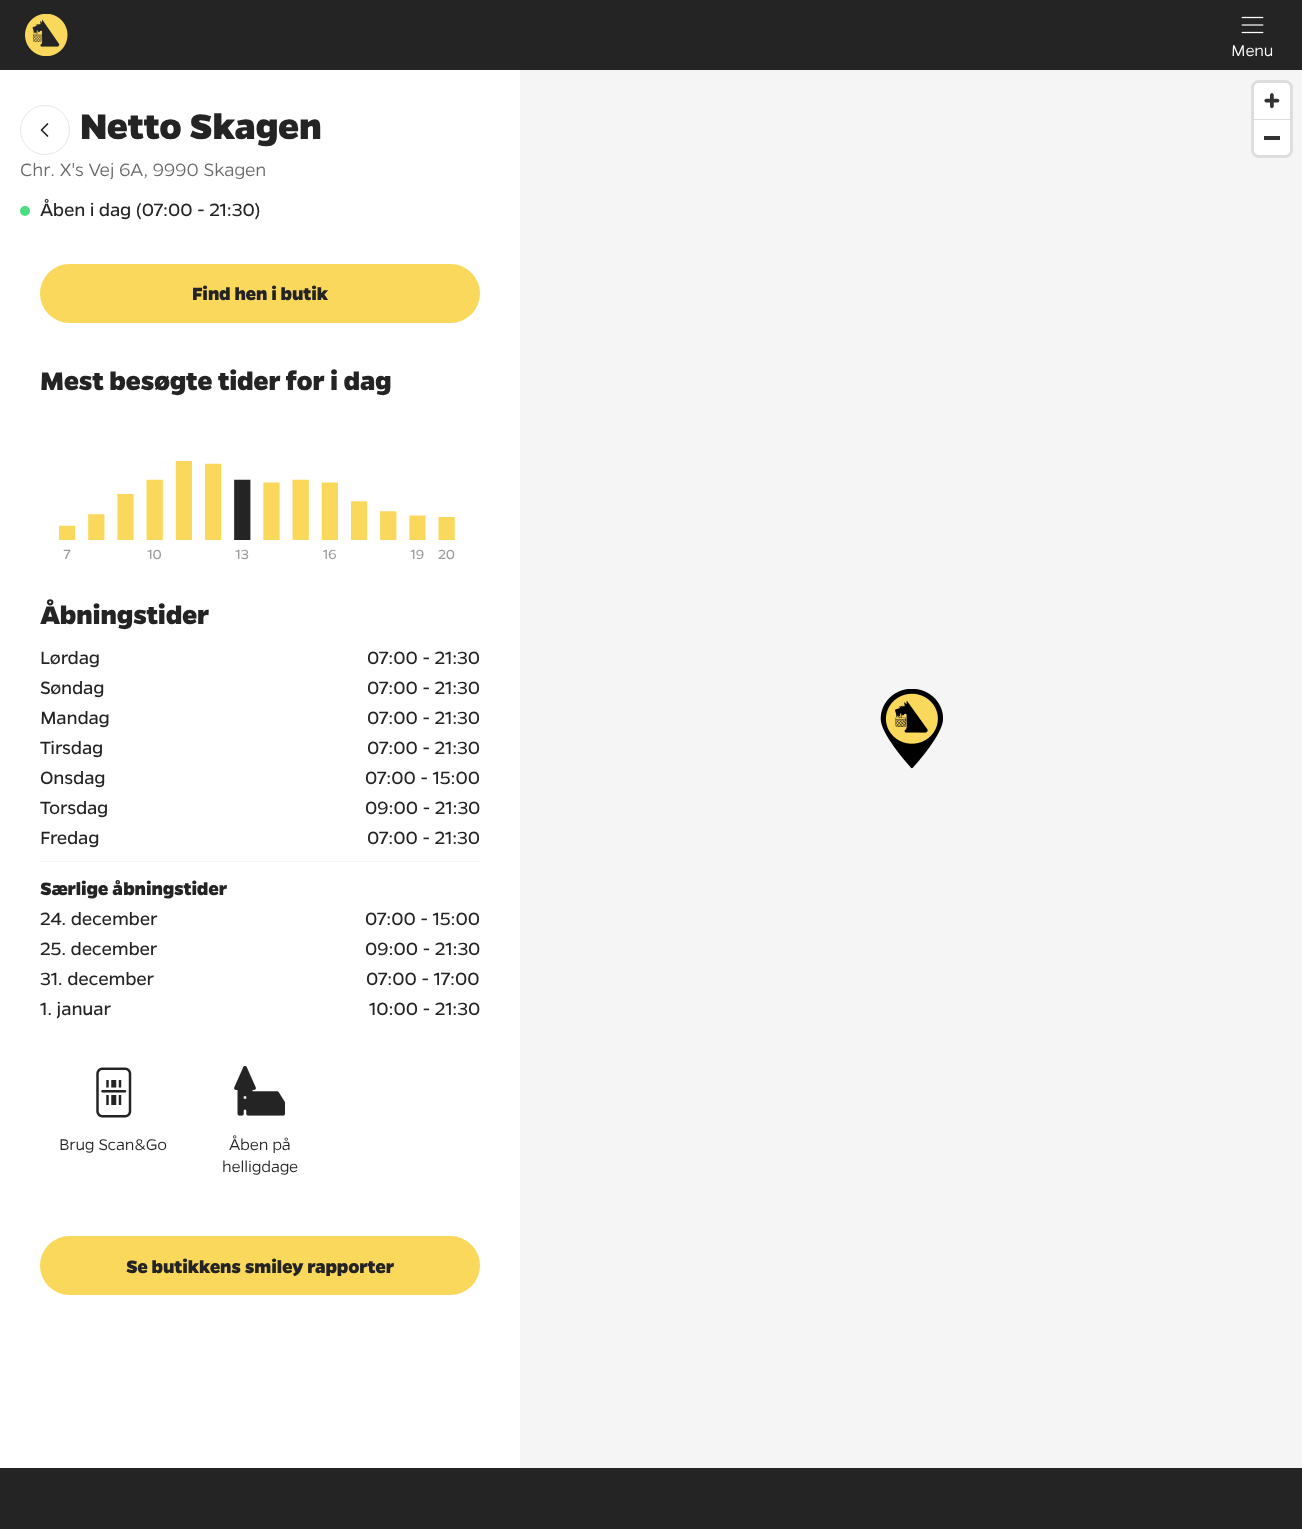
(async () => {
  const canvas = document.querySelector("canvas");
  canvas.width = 1302;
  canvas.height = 1529;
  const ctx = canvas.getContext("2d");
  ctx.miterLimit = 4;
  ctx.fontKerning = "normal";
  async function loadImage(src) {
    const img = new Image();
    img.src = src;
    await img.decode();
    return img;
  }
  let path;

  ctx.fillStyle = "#f5f5f5";
  ctx.fillRect(0, 0, 1302, 1529);
  ctx.fillStyle = "#242424";
  ctx.fillRect(0, 0, 1302, 70);
  ctx.drawImage(await loadImage("img/1.png"), 25, 14, 43, 42);
  ctx.drawImage(await loadImage("img/2.png"), 1241, 16, 23, 18);
  ctx.fillStyle = "#ffffff";
  ctx.fillRect(0, 70, 520, 1398);
  ctx.beginPath();
  ctx.arc(45, 130, 24.5, 0, Math.PI * 2);
  ctx.strokeStyle = "#e7e7e7";
  ctx.stroke();
  path = new Path2D("M47.5 136L41.5 130L47.5 124");
  ctx.strokeStyle = "#242424";
  ctx.lineWidth = 1.7;
  ctx.lineCap = "round";
  ctx.lineJoin = "round";
  ctx.stroke(path);
  ctx.fillStyle = "#4ade80";
  ctx.beginPath();
  ctx.arc(25, 211, 5, 0, Math.PI * 2);
  ctx.fill();
  ctx.fillStyle = "#fad85b";
  ctx.beginPath();
  ctx.roundRect(40, 264, 440, 59, 29.5);
  ctx.fill();
  ctx.drawImage(await loadImage("img/3.png"), 58, 461, 397, 99);
  ctx.fillStyle = "#f5f5f5";
  ctx.fillRect(40, 861, 440, 1);
  ctx.drawImage(await loadImage("img/4.png"), 96, 1067, 36, 51);
  ctx.drawImage(await loadImage("img/5.png"), 234, 1066, 51, 50);
  ctx.fillStyle = "#fad85b";
  ctx.beginPath();
  ctx.roundRect(40, 1236, 440, 59, 29.5);
  ctx.fill();
  ctx.beginPath();
  ctx.roundRect(1252.5, 81.5, 39, 75, 6.5);
  ctx.strokeStyle = "#dddddd";
  ctx.lineWidth = 3;
  ctx.lineJoin = "miter";
  ctx.stroke();
  ctx.fillStyle = "#ffffff";
  ctx.beginPath();
  ctx.roundRect(1254, 83, 36, 72, 5);
  ctx.fill();
  ctx.drawImage(await loadImage("img/6.png"), 1264, 93, 16, 16);
  ctx.fillStyle = "#dddddd";
  ctx.fillRect(1254, 119, 36, 1);
  ctx.fillStyle = "#333333";
  ctx.fillRect(1264, 136, 16, 4);
  ctx.drawImage(await loadImage("img/7.png"), 880, 689, 63, 80);
  ctx.fillStyle = "#242424";
  ctx.fillRect(0, 1468, 1302, 61);
  ctx.font = "300 17.5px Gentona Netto";
  ctx.fillStyle = "#ffffff";
  ctx.fillText("Menu", 1231, 56);
  ctx.font = "800 40px Gentona Netto";
  ctx.fillStyle = "#242424";
  ctx.fillText("Netto Skagen", 80, 139);
  ctx.font = "300 20px Gentona Netto";
  ctx.fillStyle = "#6a6a6a";
  ctx.fillText("Chr. X's Vej 6A, 9990 Skagen", 20, 176);
  ctx.font = "20px Gentona Netto";
  ctx.fillStyle = "#242424";
  ctx.fillText("Åben i dag (07:00 - 21:30)", 40, 216);
  ctx.save();
  ctx.beginPath();
  ctx.rect(193, 281, 135, 24);
  ctx.clip();
  ctx.font = "800 20px Gentona Netto";
  ctx.fillText("Find hen i butik", 192, 300);
  ctx.restore();
  ctx.font = "800 28.75px Gentona Netto";
  ctx.fillText("Mest besøgte tider for i dag", 40, 390);
  ctx.fillText("Åbningstider", 40, 624);
  ctx.font = "20px Gentona Netto";
  for (const [text, x, y] of [
    ["Lørdag", 40, 664],
    ["07:00 - 21:30", 367, 664],
    ["Søndag", 40, 694],
    ["07:00 - 21:30", 367, 694],
    ["Mandag", 40, 724],
    ["07:00 - 21:30", 367, 724],
    ["Tirsdag", 40, 754],
    ["07:00 - 21:30", 367, 754],
    ["Onsdag", 40, 784],
    ["07:00 - 15:00", 365, 784],
    ["Torsdag", 40, 814],
    ["09:00 - 21:30", 365, 814],
    ["Fredag", 40, 844],
    ["07:00 - 21:30", 367, 844],
  ]) {
    ctx.fillText(text, x, y);
  }
  ctx.font = "800 20px Gentona Netto";
  ctx.fillText("Særlige åbningstider", 40, 895);
  ctx.font = "20px Gentona Netto";
  for (const [text, x, y] of [
    ["24. december", 40, 925],
    ["07:00 - 15:00", 365, 925],
    ["25. december", 40, 955],
    ["09:00 - 21:30", 365, 955],
    ["31. december", 40, 985],
    ["07:00 - 17:00", 366, 985],
    ["1. januar", 40, 1015],
    ["10:00 - 21:30", 369, 1015],
  ]) {
    ctx.fillText(text, x, y);
  }
  ctx.font = "300 17.5px Gentona Netto";
  for (const [text, x, y] of [
    ["Brug Scan&Go", 59, 1150],
    ["Åben på", 229, 1150],
    ["helligdage", 222, 1172],
  ]) {
    ctx.fillText(text, x, y);
  }
  ctx.font = "800 20px Gentona Netto";
  ctx.fillText("Se butikkens smiley rapporter", 126, 1273);
})();
